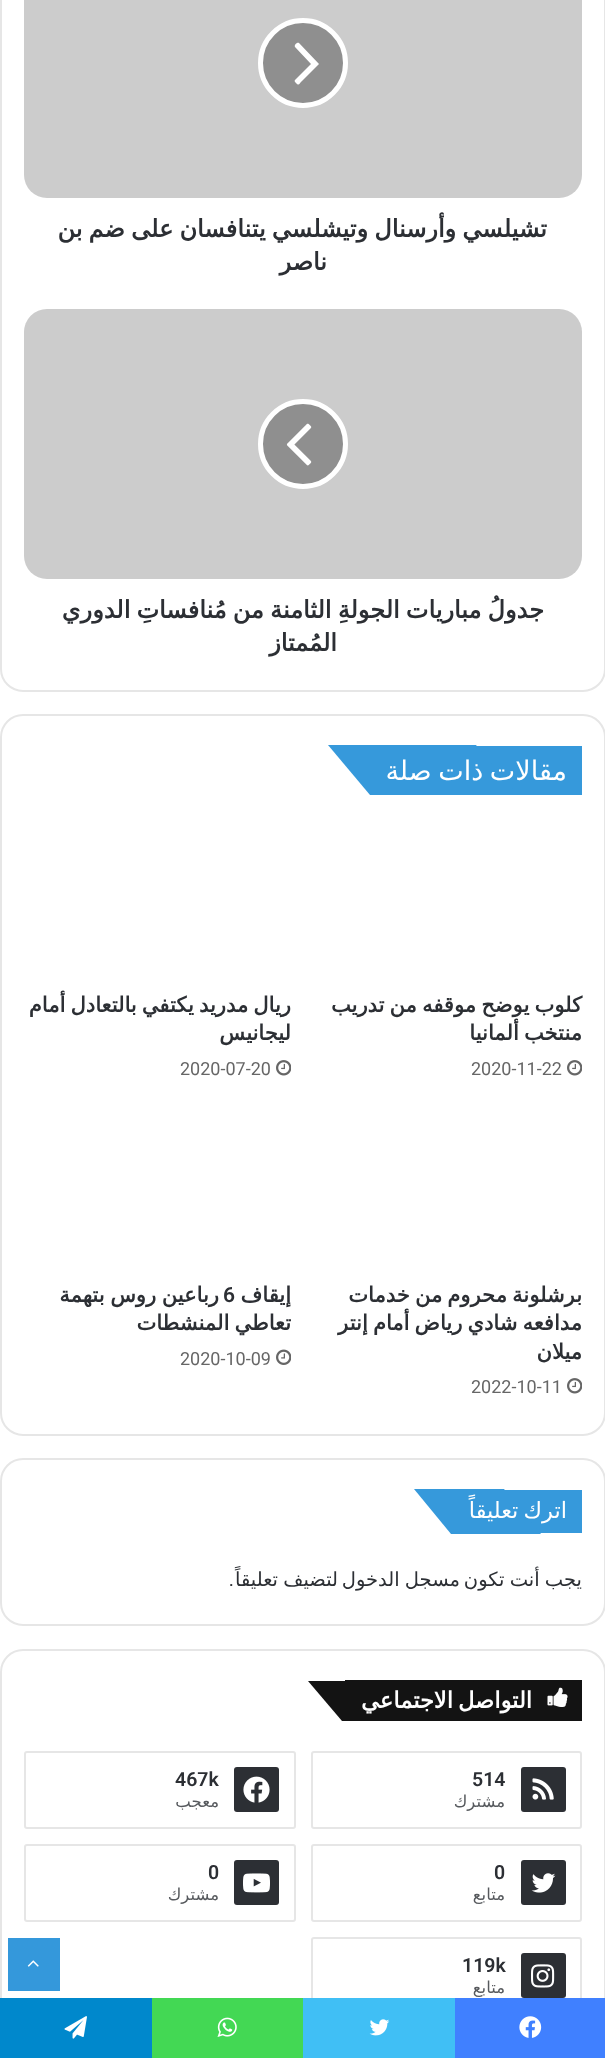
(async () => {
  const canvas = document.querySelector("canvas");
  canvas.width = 605;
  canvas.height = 2058;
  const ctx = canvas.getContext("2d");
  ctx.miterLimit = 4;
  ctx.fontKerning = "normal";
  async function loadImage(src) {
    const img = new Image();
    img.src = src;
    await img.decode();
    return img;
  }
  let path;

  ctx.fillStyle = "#ffffff";
  ctx.fillRect(0, 0, 605, 2058);
  ctx.beginPath();
  ctx.roundRect(1, -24, 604, 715, 22);
  ctx.strokeStyle = "#e6e6e6";
  ctx.lineWidth = 2;
  ctx.stroke();
  ctx.fillStyle = "#cccccc";
  ctx.beginPath();
  ctx.roundRect(24, -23, 558, 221, 23);
  ctx.fill();
  ctx.fillStyle = "#8f8f8f";
  ctx.beginPath();
  ctx.arc(303, 63, 42.5, 0, Math.PI * 2);
  ctx.fill();
  ctx.strokeStyle = "#ffffff";
  ctx.lineWidth = 5;
  ctx.stroke();
  ctx.fillStyle = "#ffffff";
  path = new Path2D("M319 64L302 81C299 84 299 86 296 83C295 82 294 81 295 80L311 64L295 47C294 45 297 42 299 43Z");
  ctx.fill(path);
  ctx.fillStyle = "#cccccc";
  ctx.beginPath();
  ctx.roundRect(24, 309, 558, 270, 23);
  ctx.fill();
  ctx.fillStyle = "#8f8f8f";
  ctx.beginPath();
  ctx.arc(303, 444, 42.5, 0, Math.PI * 2);
  ctx.fill();
  ctx.stroke();
  ctx.drawImage(await loadImage("img/1.png"), 286, 423, 26, 43);
  ctx.beginPath();
  ctx.roundRect(1, 715, 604, 720, 22);
  ctx.strokeStyle = "#e6e6e6";
  ctx.lineWidth = 2;
  ctx.stroke();
  ctx.fillStyle = "#3699db";
  ctx.fillRect(476, 746, 106, 49);
  path = new Path2D("M328 745H476L518 795H370Z");
  ctx.fill(path);
  ctx.drawImage(await loadImage("img/2.png"), 567, 1060, 15, 16);
  ctx.drawImage(await loadImage("img/2.png"), 276, 1060, 15, 16);
  ctx.drawImage(await loadImage("img/2.png"), 567, 1378, 15, 16);
  ctx.drawImage(await loadImage("img/3.png"), 276, 1349, 15, 16);
  ctx.beginPath();
  ctx.roundRect(1, 1459, 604, 166, 22);
  ctx.stroke();
  ctx.fillRect(504, 1490, 78, 43);
  path = new Path2D("M414 1489H504L541 1534H451Z");
  ctx.fill(path);
  ctx.beginPath();
  ctx.roundRect(1, 1650, 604, 395, 22);
  ctx.stroke();
  ctx.fillStyle = "#131313";
  ctx.fillRect(345, 1680, 237, 41);
  path = new Path2D("M308 1681H473L507 1721H342Z");
  ctx.fill(path);
  ctx.drawImage(await loadImage("img/4.png"), 547, 1687, 21, 20);
  ctx.beginPath();
  ctx.roundRect(312, 1752, 269, 76, 2);
  ctx.stroke();
  ctx.fillStyle = "#2c2f34";
  ctx.beginPath();
  ctx.roundRect(521, 1767, 45, 45, 3);
  ctx.fill();
  ctx.drawImage(await loadImage("img/5.png"), 532, 1778, 22, 22);
  ctx.beginPath();
  ctx.roundRect(25, 1752, 270, 76, 2);
  ctx.stroke();
  ctx.beginPath();
  ctx.roundRect(234, 1767, 45, 45, 3);
  ctx.fill();
  ctx.drawImage(await loadImage("img/6.png"), 243, 1776, 27, 27);
  ctx.beginPath();
  ctx.roundRect(312, 1845, 269, 76, 2);
  ctx.stroke();
  ctx.beginPath();
  ctx.roundRect(521, 1860, 45, 45, 3);
  ctx.fill();
  ctx.drawImage(await loadImage("img/7.png"), 531, 1873, 25, 20);
  ctx.beginPath();
  ctx.roundRect(25, 1845, 270, 76, 2);
  ctx.stroke();
  ctx.beginPath();
  ctx.roundRect(234, 1860, 45, 45, 3);
  ctx.fill();
  ctx.drawImage(await loadImage("img/8.png"), 243, 1873, 27, 20);
  ctx.beginPath();
  ctx.roundRect(312, 1938, 269, 76, 2);
  ctx.stroke();
  ctx.beginPath();
  ctx.roundRect(521, 1953, 45, 45, 3);
  ctx.fill();
  ctx.drawImage(await loadImage("img/9.png"), 531, 1964, 24, 24);
  ctx.fillStyle = "#3498db";
  ctx.fillRect(8, 1938, 52, 53);
  ctx.drawImage(await loadImage("img/10.png"), 27, 1960, 12, 7);
  ctx.fillStyle = "#4080ff";
  ctx.fillRect(455, 1998, 150, 60);
  ctx.drawImage(await loadImage("img/11.png"), 519, 2016, 23, 22);
  ctx.fillStyle = "#40bff5";
  ctx.fillRect(303, 1998, 152, 60);
  ctx.drawImage(await loadImage("img/12.png"), 369, 2019, 21, 17);
  ctx.fillStyle = "#43d854";
  ctx.fillRect(152, 1998, 151, 60);
  ctx.drawImage(await loadImage("img/13.png"), 217, 2017, 20, 20);
  ctx.fillStyle = "#0088cc";
  ctx.fillRect(0, 1998, 152, 60);
  ctx.drawImage(await loadImage("img/14.png"), 64, 2016, 23, 23);
  ctx.wordSpacing = "-1.5px";
  ctx.direction = "rtl";
  ctx.font = "bold 24px DejaVu Sans";
  ctx.fillStyle = "#2c2f34";
  ctx.fillText("تشيلسي وأرسنال وتيشلسي يتنافسان على ضم بن", 547, 237);
  ctx.wordSpacing = "0px";
  ctx.fillText("ناصر", 327, 270);
  ctx.wordSpacing = "-1.5px";
  ctx.fillText("جدولُ مباريات الجولةِ الثامنة من مُنافساتِ الدوري", 544, 618);
  ctx.wordSpacing = "0px";
  ctx.fillText("المُمتاز", 337, 651);
  ctx.wordSpacing = "-2px";
  ctx.font = "27px DejaVu Sans";
  ctx.fillStyle = "#ffffff";
  ctx.fillText("مقالات ذات صلة", 567, 780);
  ctx.wordSpacing = "-1.5px";
  ctx.font = "bold 21px DejaVu Sans";
  ctx.fillStyle = "#2c2f34";
  ctx.fillText("كلوب يوضح موقفه من تدريب", 582, 1012);
  ctx.fillText("منتخب ألمانيا", 582, 1040);
  ctx.wordSpacing = "0px";
  ctx.direction = "ltr";
  ctx.font = "18px Roboto";
  ctx.fillStyle = "#666666";
  ctx.fillText("2020-11-22", 471, 1075);
  ctx.wordSpacing = "-1.5px";
  ctx.direction = "rtl";
  ctx.font = "bold 21px DejaVu Sans";
  ctx.fillStyle = "#2c2f34";
  ctx.fillText("ريال مدريد يكتفي بالتعادل أمام", 291, 1012);
  ctx.wordSpacing = "0px";
  ctx.fillText("ليجانيس", 291, 1040);
  ctx.direction = "ltr";
  ctx.font = "18px Roboto";
  ctx.fillStyle = "#666666";
  ctx.fillText("2020-07-20", 180, 1075);
  ctx.wordSpacing = "-1.5px";
  ctx.direction = "rtl";
  ctx.font = "bold 21px DejaVu Sans";
  ctx.fillStyle = "#2c2f34";
  ctx.fillText("برشلونة محروم من خدمات", 582, 1302);
  ctx.fillText("مدافعه شادي رياض أمام إنتر", 582, 1330);
  ctx.wordSpacing = "0px";
  ctx.fillText("ميلان", 582, 1359);
  ctx.direction = "ltr";
  ctx.font = "18px Roboto";
  ctx.fillStyle = "#666666";
  ctx.fillText("2022-10-11", 471, 1393);
  ctx.direction = "rtl";
  ctx.font = "bold 21px DejaVu Sans";
  ctx.fillStyle = "#2c2f34";
  ctx.fillText("إيقاف", 291, 1302);
  ctx.direction = "ltr";
  ctx.font = "600 21px Roboto";
  ctx.fillText("6", 223, 1302);
  ctx.wordSpacing = "-1px";
  ctx.direction = "rtl";
  ctx.font = "bold 21px DejaVu Sans";
  ctx.fillText("رباعين روس بتهمة", 219, 1302);
  ctx.wordSpacing = "-1.5px";
  ctx.fillText("تعاطي المنشطات", 291, 1330);
  ctx.wordSpacing = "0px";
  ctx.direction = "ltr";
  ctx.font = "18px Roboto";
  ctx.fillStyle = "#666666";
  ctx.fillText("2020-10-09", 180, 1365);
  ctx.wordSpacing = "-2px";
  ctx.direction = "rtl";
  ctx.font = "22.5px DejaVu Sans";
  ctx.fillStyle = "#ffffff";
  ctx.fillText("اترك تعليقاً", 567, 1518);
  ctx.wordSpacing = "-1px";
  ctx.font = "19.5px DejaVu Sans";
  ctx.fillStyle = "#2c2f34";
  for (const [text, x, y] of [
    ["يجب أنت تكون", 582, 1586],
    ["مسجل الدخول", 460, 1586],
    ["لتضيف تعليقاً", 338, 1586],
  ]) {
    ctx.fillText(text, x, y);
  }
  ctx.wordSpacing = "0px";
  ctx.font = "19.5px Roboto";
  ctx.fillText(".", 234, 1586);
  ctx.wordSpacing = "-2px";
  ctx.font = "bold 22.5px DejaVu Sans";
  ctx.fillStyle = "#ffffff";
  ctx.fillText("التواصل الاجتماعي", 532, 1708);
  ctx.wordSpacing = "0px";
  ctx.direction = "ltr";
  ctx.font = "600 19.5px Roboto";
  ctx.fillStyle = "#2c2f34";
  ctx.fillText("514", 472, 1786);
  ctx.direction = "rtl";
  ctx.font = "16.5px DejaVu Sans";
  ctx.fillStyle = "#56595d";
  ctx.fillText("مشترك", 505, 1807);
  ctx.direction = "ltr";
  ctx.font = "600 19.5px Roboto";
  ctx.fillStyle = "#2c2f34";
  ctx.fillText("467k", 175, 1786);
  ctx.direction = "rtl";
  ctx.font = "16.5px DejaVu Sans";
  ctx.fillStyle = "#56595d";
  ctx.fillText("معجب", 219, 1807);
  ctx.direction = "ltr";
  ctx.font = "600 19.5px Roboto";
  ctx.fillStyle = "#2c2f34";
  ctx.fillText("0", 494, 1879);
  ctx.direction = "rtl";
  ctx.font = "16.5px DejaVu Sans";
  ctx.fillStyle = "#56595d";
  ctx.fillText("متابع", 505, 1900);
  ctx.direction = "ltr";
  ctx.font = "600 19.5px Roboto";
  ctx.fillStyle = "#2c2f34";
  ctx.fillText("0", 208, 1879);
  ctx.direction = "rtl";
  ctx.font = "16.5px DejaVu Sans";
  ctx.fillStyle = "#56595d";
  ctx.fillText("مشترك", 219, 1900);
  ctx.direction = "ltr";
  ctx.font = "600 19.5px Roboto";
  ctx.fillStyle = "#2c2f34";
  ctx.fillText("119k", 462, 1972);
  ctx.direction = "rtl";
  ctx.font = "16.5px DejaVu Sans";
  ctx.fillStyle = "#56595d";
  ctx.fillText("متابع", 505, 1993);
})();
